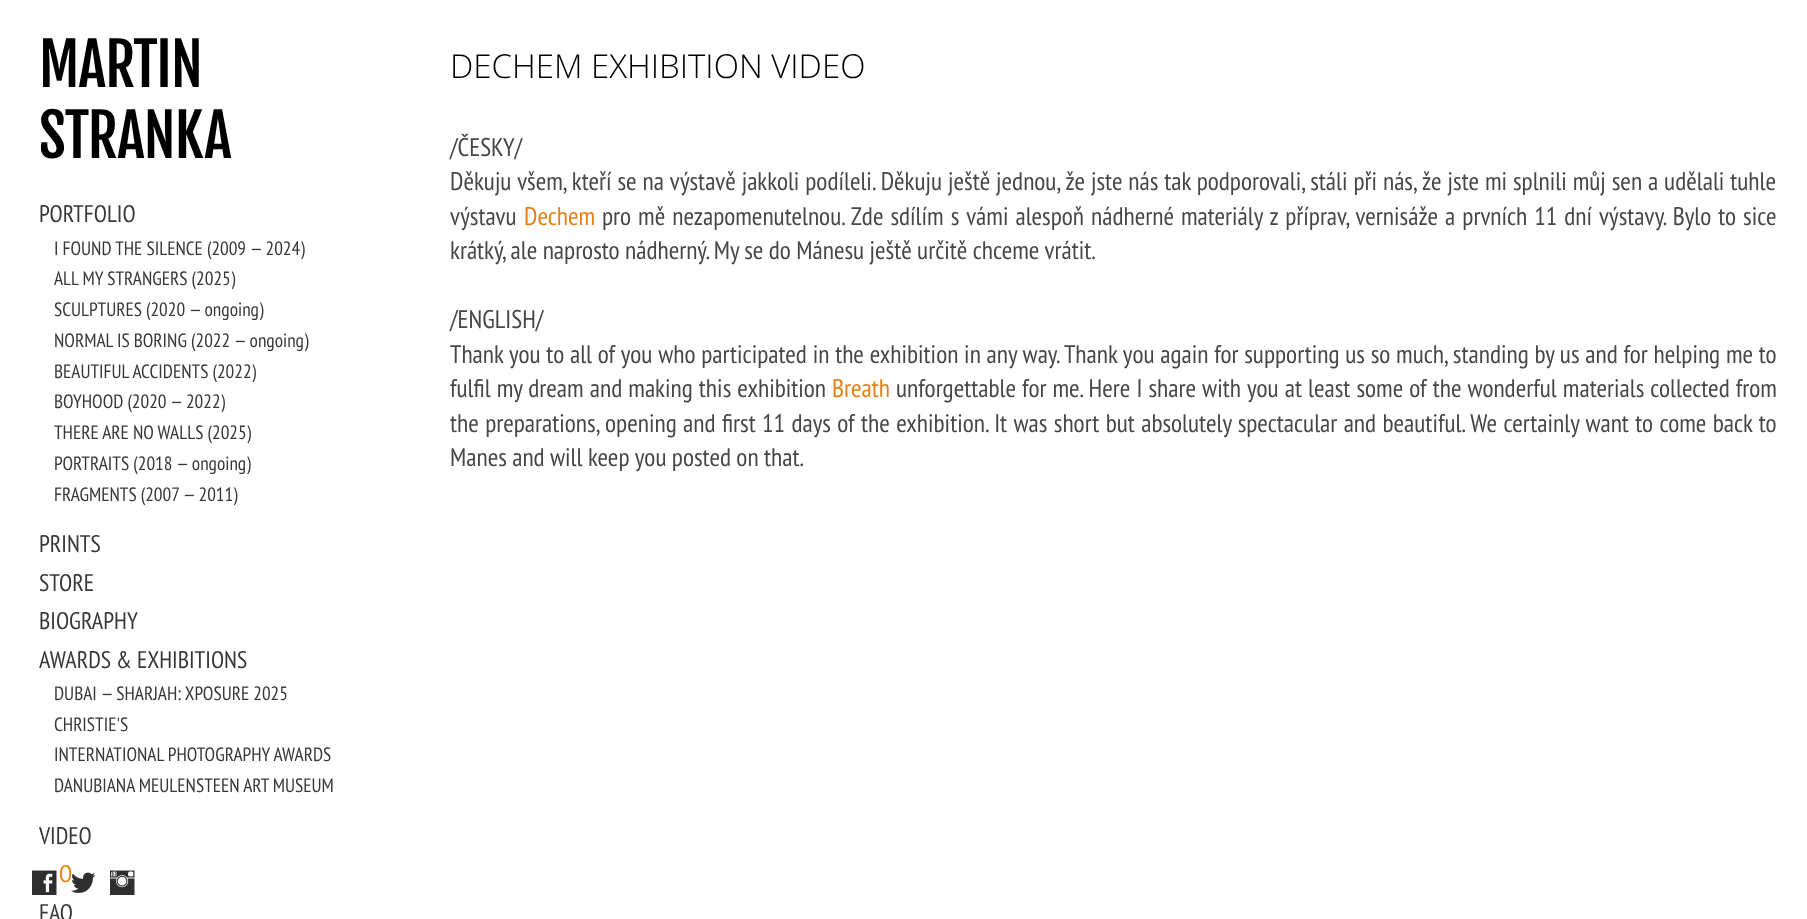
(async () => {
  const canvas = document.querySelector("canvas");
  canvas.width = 1807;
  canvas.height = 919;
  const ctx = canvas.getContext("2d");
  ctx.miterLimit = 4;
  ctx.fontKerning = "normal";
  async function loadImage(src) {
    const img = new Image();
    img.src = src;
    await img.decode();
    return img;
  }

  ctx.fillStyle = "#ffffff";
  ctx.fillRect(0, 0, 1807, 919);
  ctx.drawImage(await loadImage("img/1.png"), 32, 870, 25, 25);
  ctx.drawImage(await loadImage("img/3.png"), 110, 870, 25, 25);
  ctx.letterSpacing = "-0.75px";
  ctx.font = "58.5px Fjalla One";
  ctx.fillStyle = "#000000";
  ctx.fillText("MARTIN", 39, 87);
  ctx.fillText("STRANKA", 39, 158);
  ctx.letterSpacing = "0px";
  ctx.font = "24px PT Sans Narrow";
  ctx.fillStyle = "#383838";
  ctx.fillText("PORTFOLIO", 39, 222);
  ctx.font = "19.25px PT Sans Narrow";
  for (const [text, x, y] of [
    ["I FOUND THE SILENCE (2009 — 2024)", 54, 255],
    ["ALL MY STRANGERS (2025)", 54, 285],
    ["SCULPTURES (2020 — ongoing)", 54, 316],
    ["NORMAL IS BORING (2022 — ongoing)", 54, 347],
    ["BEAUTIFUL ACCIDENTS (2022)", 54, 378],
    ["BOYHOOD (2020 — 2022)", 54, 408],
    ["THERE ARE NO WALLS (2025)", 54, 439],
    ["PORTRAITS (2018 — ongoing)", 54, 470],
    ["FRAGMENTS (2007 — 2011)", 54, 501],
  ]) {
    ctx.fillText(text, x, y);
  }
  ctx.font = "24px PT Sans Narrow";
  for (const [text, x, y] of [
    ["PRINTS", 39, 552],
    ["STORE", 39, 591],
    ["BIOGRAPHY", 39, 629],
    ["AWARDS & EXHIBITIONS", 39, 668],
  ]) {
    ctx.fillText(text, x, y);
  }
  ctx.font = "19.25px PT Sans Narrow";
  for (const [text, x, y] of [
    ["DUBAI — SHARJAH: XPOSURE 2025", 54, 700],
    ["CHRISTIE'S", 54, 731],
    ["INTERNATIONAL PHOTOGRAPHY AWARDS", 54, 761],
    ["DANUBIANA MEULENSTEEN ART MUSEUM", 54, 792],
  ]) {
    ctx.fillText(text, x, y);
  }
  ctx.font = "24px PT Sans Narrow";
  ctx.fillText("VIDEO", 39, 844);
  ctx.fillStyle = "#e68012";
  ctx.fillText("O", 59, 882);
  ctx.fillStyle = "#383838";
  ctx.fillText("FAQ", 39, 921);
  ctx.font = "300 33px Open Sans";
  ctx.fillStyle = "#000000";
  ctx.fillText("DECHEM EXHIBITION VIDEO", 450, 78);
  ctx.font = "25.5px PT Sans Narrow";
  ctx.fillStyle = "#474747";
  ctx.fillText("/ČESKY/", 450, 156);
  ctx.wordSpacing = "0.5px";
  ctx.fillText("Děkuju všem, kteří se na výstavě jakkoli podíleli. Děkuju ještě jednou, že jste nás tak podporovali, stáli při nás, že jste mi splnili můj sen a udělali tuhle", 450, 190);
  ctx.wordSpacing = "0px";
  ctx.fillText("výstavu", 450, 225);
  ctx.fillStyle = "#e68012";
  ctx.fillText("Dechem", 524, 225);
  ctx.wordSpacing = "1.6px";
  ctx.fillStyle = "#474747";
  ctx.fillText("pro mě nezapomenutelnou. Zde sdílím s vámi alespoň nádherné materiály z příprav, vernisáže a prvních 11 dní výstavy. Bylo to sice", 602, 225);
  ctx.wordSpacing = "0px";
  ctx.fillText("krátký, ale naprosto nádherný. My se do Mánesu ještě určitě chceme vrátit.", 450, 259);
  ctx.fillText("/ENGLISH/", 450, 328);
  ctx.wordSpacing = "0.35px";
  ctx.fillText("Thank you to all of you who participated in the exhibition in any way. Thank you again for supporting us so much, standing by us and for helping me to", 450, 363);
  ctx.wordSpacing = "0.7px";
  ctx.fillText("fulfil my dream and making this exhibition", 450, 397);
  ctx.wordSpacing = "0px";
  ctx.fillStyle = "#e68012";
  ctx.fillText("Breath", 832, 397);
  ctx.wordSpacing = "0.7px";
  ctx.fillStyle = "#474747";
  ctx.fillText("unforgettable for me. Here I share with you at least some of the wonderful materials collected from", 896, 397);
  ctx.wordSpacing = "1px";
  ctx.fillText("the preparations, opening and first 11 days of the exhibition. It was short but absolutely spectacular and beautiful. We certainly want to come back to", 450, 432);
  ctx.wordSpacing = "0px";
  ctx.fillText("Manes and will keep you posted on that.", 450, 466);
  ctx.drawImage(await loadImage("img/2.png"), 71, 872, 25, 21);
})();
